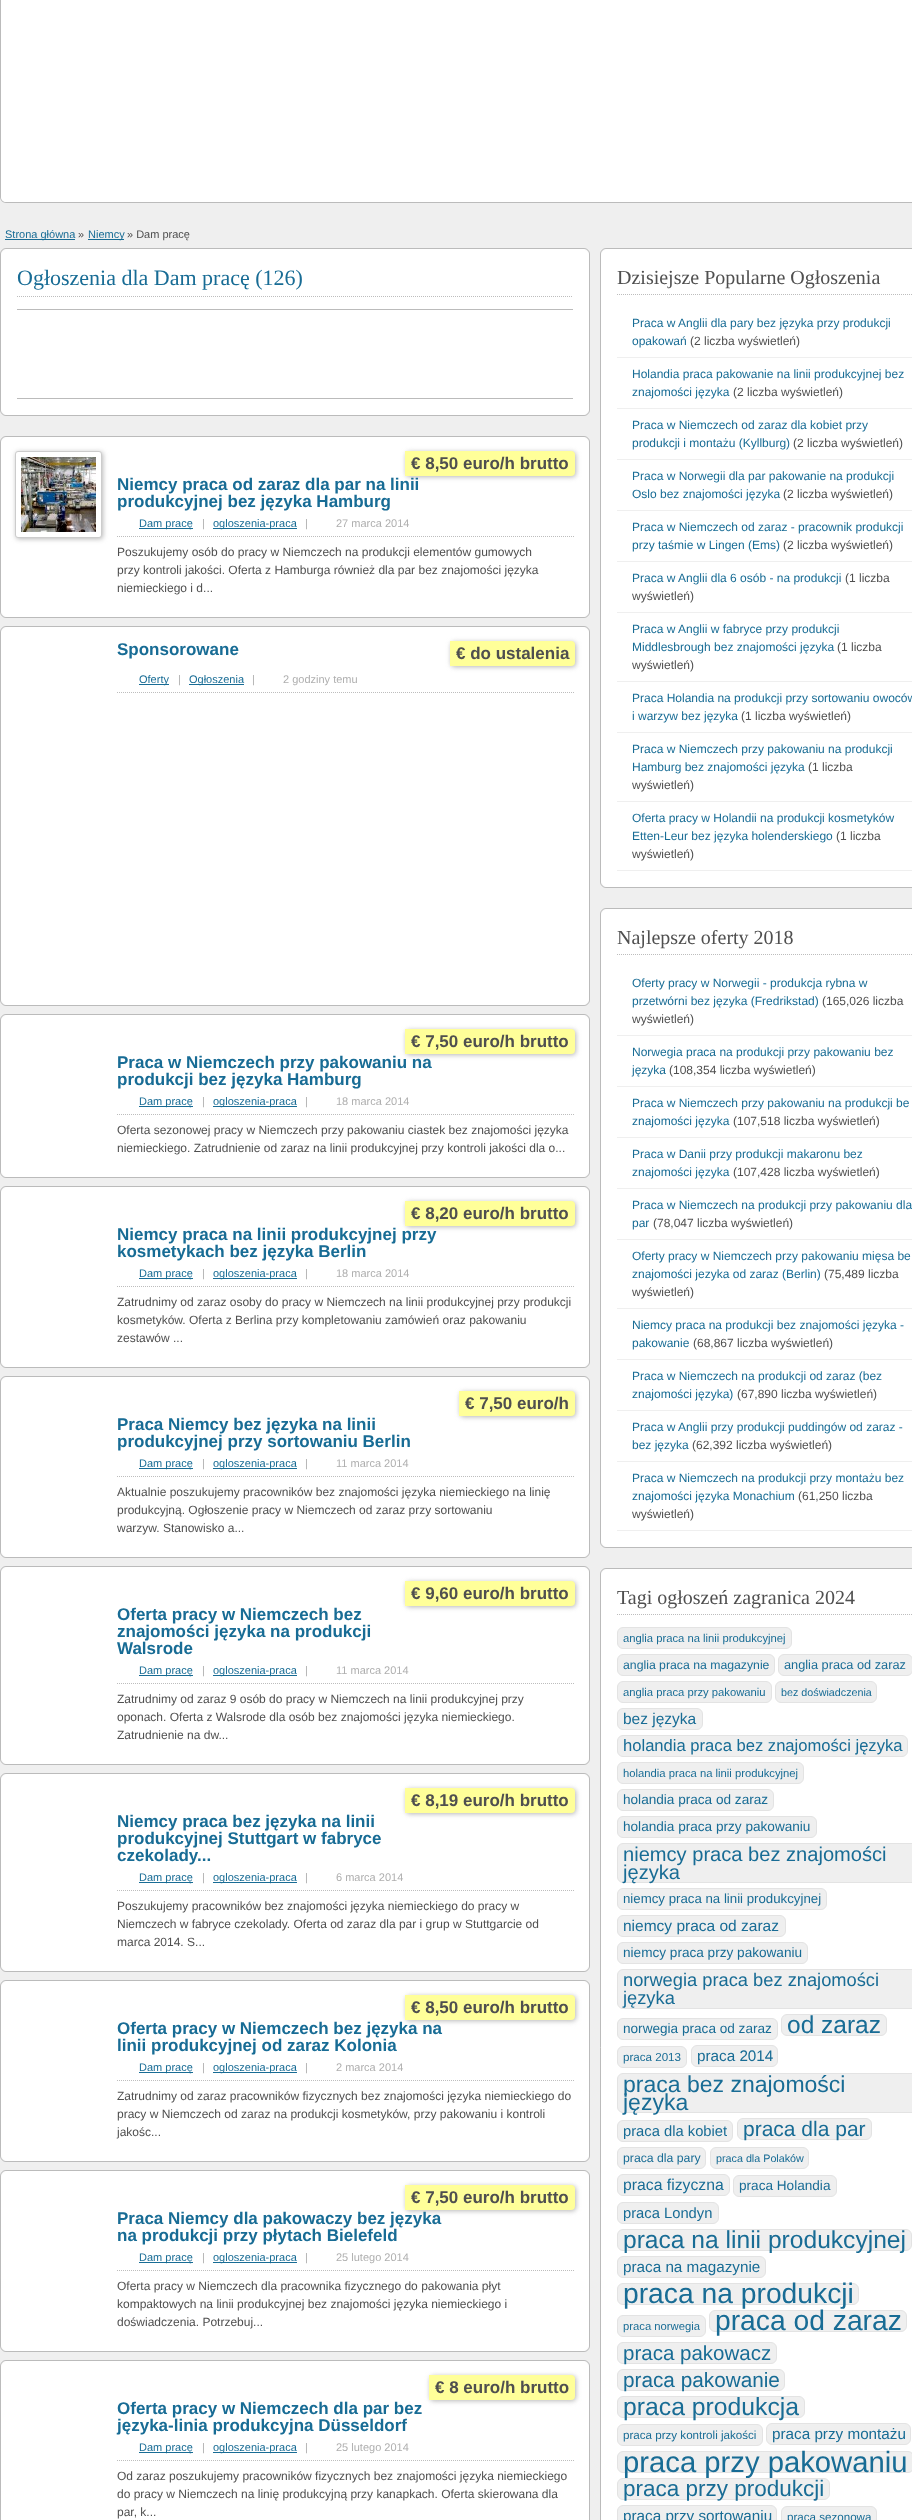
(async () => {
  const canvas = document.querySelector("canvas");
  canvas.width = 912;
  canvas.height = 2520;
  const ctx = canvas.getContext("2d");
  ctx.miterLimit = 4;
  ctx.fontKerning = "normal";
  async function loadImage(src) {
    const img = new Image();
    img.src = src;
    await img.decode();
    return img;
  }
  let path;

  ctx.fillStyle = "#efefef";
  ctx.fillRect(0, 0, 912, 2520);
  ctx.fillStyle = "#bbbbbb";
  path = new Path2D("M0-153H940V197C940 200 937 203 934 203H6C3 203 0 200 0 197ZM1-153H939V197C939 200 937 202 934 202H6C3 202 1 200 1 197Z");
  ctx.fill(path, "evenodd");
  ctx.fillStyle = "#ffffff";
  path = new Path2D("M1-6H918V196C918 199.5 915.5 202 912 202H7C3.5 202 1 199.5 1 196Z");
  ctx.fill(path);
  path = new Path2D("M1-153H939V196C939 199 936 202 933 202H7C4 202 1 199 1 196ZM2-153H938V196C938 199 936 201 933 201H7C4 201 2 199 2 196Z");
  ctx.fill(path, "evenodd");
  ctx.fillStyle = "#186c95";
  ctx.fillRect(5, 239, 70, 1);
  ctx.fillRect(88, 239, 36, 1);
  ctx.beginPath();
  ctx.roundRect(0.5, 248.5, 589, 167, 5.5);
  ctx.strokeStyle = "#bbbbbb";
  ctx.stroke();
  ctx.fillStyle = "#ffffff";
  ctx.beginPath();
  ctx.roundRect(1.5, 249.5, 587, 165, 5.5);
  ctx.fill();
  ctx.strokeStyle = "#ffffff";
  ctx.stroke();
  path = new Path2D("M17 296.5H573");
  ctx.strokeStyle = "#bdbdbd";
  ctx.setLineDash([1, 1]);
  ctx.stroke(path);
  ctx.fillStyle = "#bbbbbb";
  ctx.fillRect(17, 309, 556, 1);
  ctx.fillRect(17, 398, 556, 1);
  ctx.beginPath();
  ctx.roundRect(0.5, 436.5, 589, 181, 5.5);
  ctx.strokeStyle = "#bbbbbb";
  ctx.setLineDash([]);
  ctx.stroke();
  ctx.fillStyle = "#ffffff";
  ctx.beginPath();
  ctx.roundRect(1.5, 437.5, 587, 179, 5.5);
  ctx.fill();
  ctx.strokeStyle = "#ffffff";
  ctx.stroke();
  ctx.fillStyle = "#b7b7b7";
  ctx.filter = "blur(2.5px)";
  ctx.beginPath();
  ctx.roundRect(16, 452, 87, 87, 3);
  ctx.fill();
  ctx.filter = "none";
  ctx.fillStyle = "#ffffff";
  ctx.beginPath();
  ctx.roundRect(15.5, 451.5, 86, 86, 2.5);
  ctx.fill();
  ctx.strokeStyle = "#cccccc";
  ctx.stroke();
  ctx.drawImage(await loadImage("img/1.png"), 21, 457, 75, 75);
  ctx.fillStyle = "#b7b7b7";
  ctx.filter = "blur(2.5px)";
  ctx.beginPath();
  ctx.roundRect(406, 452, 170, 25, 4);
  ctx.fill();
  ctx.filter = "none";
  ctx.fillStyle = "#ffff99";
  ctx.beginPath();
  ctx.roundRect(405, 451, 170, 25, [0, 4, 4, 0]);
  ctx.fill();
  path = new Path2D("M117 536.5H575");
  ctx.strokeStyle = "#bdbdbd";
  ctx.setLineDash([1, 1]);
  ctx.stroke(path);
  ctx.fillStyle = "#186c95";
  ctx.fillRect(139, 528, 54, 1);
  ctx.fillRect(213, 528, 84, 1);
  ctx.beginPath();
  ctx.roundRect(0.5, 626.5, 589, 379, 5.5);
  ctx.strokeStyle = "#bbbbbb";
  ctx.setLineDash([]);
  ctx.stroke();
  ctx.fillStyle = "#ffffff";
  ctx.beginPath();
  ctx.roundRect(1.5, 627.5, 587, 377, 5.5);
  ctx.fill();
  ctx.strokeStyle = "#ffffff";
  ctx.stroke();
  ctx.fillStyle = "#b7b7b7";
  ctx.filter = "blur(2.5px)";
  ctx.beginPath();
  ctx.roundRect(451, 642, 125, 25, 4);
  ctx.fill();
  ctx.filter = "none";
  ctx.fillStyle = "#ffff99";
  ctx.beginPath();
  ctx.roundRect(450, 641, 125, 25, [0, 4, 4, 0]);
  ctx.fill();
  path = new Path2D("M117 692.5H575");
  ctx.strokeStyle = "#bdbdbd";
  ctx.setLineDash([1, 1]);
  ctx.stroke(path);
  ctx.fillStyle = "#186c95";
  ctx.fillRect(139, 684, 30, 1);
  ctx.fillRect(189, 684, 55, 1);
  ctx.beginPath();
  ctx.roundRect(0.5, 1014.5, 589, 163, 5.5);
  ctx.strokeStyle = "#bbbbbb";
  ctx.setLineDash([]);
  ctx.stroke();
  ctx.fillStyle = "#ffffff";
  ctx.beginPath();
  ctx.roundRect(1.5, 1015.5, 587, 161, 5.5);
  ctx.fill();
  ctx.strokeStyle = "#ffffff";
  ctx.stroke();
  ctx.fillStyle = "#b7b7b7";
  ctx.filter = "blur(2.5px)";
  ctx.beginPath();
  ctx.roundRect(406, 1030, 170, 25, 4);
  ctx.fill();
  ctx.filter = "none";
  ctx.fillStyle = "#ffff99";
  ctx.beginPath();
  ctx.roundRect(405, 1029, 170, 25, [0, 4, 4, 0]);
  ctx.fill();
  path = new Path2D("M117 1114.5H575");
  ctx.strokeStyle = "#bdbdbd";
  ctx.setLineDash([1, 1]);
  ctx.stroke(path);
  ctx.fillStyle = "#186c95";
  ctx.fillRect(139, 1106, 54, 1);
  ctx.fillRect(213, 1106, 84, 1);
  ctx.beginPath();
  ctx.roundRect(0.5, 1186.5, 589, 181, 5.5);
  ctx.strokeStyle = "#bbbbbb";
  ctx.setLineDash([]);
  ctx.stroke();
  ctx.fillStyle = "#ffffff";
  ctx.beginPath();
  ctx.roundRect(1.5, 1187.5, 587, 179, 5.5);
  ctx.fill();
  ctx.strokeStyle = "#ffffff";
  ctx.stroke();
  ctx.fillStyle = "#b7b7b7";
  ctx.filter = "blur(2.5px)";
  ctx.beginPath();
  ctx.roundRect(406, 1202, 170, 25, 4);
  ctx.fill();
  ctx.filter = "none";
  ctx.fillStyle = "#ffff99";
  ctx.beginPath();
  ctx.roundRect(405, 1201, 170, 25, [0, 4, 4, 0]);
  ctx.fill();
  path = new Path2D("M117 1286.5H575");
  ctx.strokeStyle = "#bdbdbd";
  ctx.setLineDash([1, 1]);
  ctx.stroke(path);
  ctx.fillStyle = "#186c95";
  ctx.fillRect(139, 1278, 54, 1);
  ctx.fillRect(213, 1278, 84, 1);
  ctx.beginPath();
  ctx.roundRect(0.5, 1376.5, 589, 181, 5.5);
  ctx.strokeStyle = "#bbbbbb";
  ctx.setLineDash([]);
  ctx.stroke();
  ctx.fillStyle = "#ffffff";
  ctx.beginPath();
  ctx.roundRect(1.5, 1377.5, 587, 179, 5.5);
  ctx.fill();
  ctx.strokeStyle = "#ffffff";
  ctx.stroke();
  ctx.fillStyle = "#b7b7b7";
  ctx.filter = "blur(2.5px)";
  ctx.beginPath();
  ctx.roundRect(460, 1392, 116, 25, 4);
  ctx.fill();
  ctx.filter = "none";
  ctx.fillStyle = "#ffff99";
  ctx.beginPath();
  ctx.roundRect(459, 1391, 116, 25, [0, 4, 4, 0]);
  ctx.fill();
  path = new Path2D("M117 1476.5H575");
  ctx.strokeStyle = "#bdbdbd";
  ctx.setLineDash([1, 1]);
  ctx.stroke(path);
  ctx.fillStyle = "#186c95";
  ctx.fillRect(139, 1468, 54, 1);
  ctx.fillRect(213, 1468, 84, 1);
  ctx.beginPath();
  ctx.roundRect(0.5, 1566.5, 589, 198, 5.5);
  ctx.strokeStyle = "#bbbbbb";
  ctx.setLineDash([]);
  ctx.stroke();
  ctx.fillStyle = "#ffffff";
  ctx.beginPath();
  ctx.roundRect(1.5, 1567.5, 587, 196, 5.5);
  ctx.fill();
  ctx.strokeStyle = "#ffffff";
  ctx.stroke();
  ctx.fillStyle = "#b7b7b7";
  ctx.filter = "blur(2.5px)";
  ctx.beginPath();
  ctx.roundRect(406, 1582, 170, 25, 4);
  ctx.fill();
  ctx.filter = "none";
  ctx.fillStyle = "#ffff99";
  ctx.beginPath();
  ctx.roundRect(405, 1581, 170, 25, [0, 4, 4, 0]);
  ctx.fill();
  path = new Path2D("M117 1683.5H575");
  ctx.strokeStyle = "#bdbdbd";
  ctx.setLineDash([1, 1]);
  ctx.stroke(path);
  ctx.fillStyle = "#186c95";
  ctx.fillRect(139, 1675, 54, 1);
  ctx.fillRect(213, 1675, 84, 1);
  ctx.beginPath();
  ctx.roundRect(0.5, 1773.5, 589, 198, 5.5);
  ctx.strokeStyle = "#bbbbbb";
  ctx.setLineDash([]);
  ctx.stroke();
  ctx.fillStyle = "#ffffff";
  ctx.beginPath();
  ctx.roundRect(1.5, 1774.5, 587, 196, 5.5);
  ctx.fill();
  ctx.strokeStyle = "#ffffff";
  ctx.stroke();
  ctx.fillStyle = "#b7b7b7";
  ctx.filter = "blur(2.5px)";
  ctx.beginPath();
  ctx.roundRect(406, 1789, 170, 25, 4);
  ctx.fill();
  ctx.filter = "none";
  ctx.fillStyle = "#ffff99";
  ctx.beginPath();
  ctx.roundRect(405, 1788, 170, 25, [0, 4, 4, 0]);
  ctx.fill();
  path = new Path2D("M117 1890.5H575");
  ctx.strokeStyle = "#bdbdbd";
  ctx.setLineDash([1, 1]);
  ctx.stroke(path);
  ctx.fillStyle = "#186c95";
  ctx.fillRect(139, 1882, 54, 1);
  ctx.fillRect(213, 1882, 84, 1);
  ctx.beginPath();
  ctx.roundRect(0.5, 1980.5, 589, 181, 5.5);
  ctx.strokeStyle = "#bbbbbb";
  ctx.setLineDash([]);
  ctx.stroke();
  ctx.fillStyle = "#ffffff";
  ctx.beginPath();
  ctx.roundRect(1.5, 1981.5, 587, 179, 5.5);
  ctx.fill();
  ctx.strokeStyle = "#ffffff";
  ctx.stroke();
  ctx.fillStyle = "#b7b7b7";
  ctx.filter = "blur(2.5px)";
  ctx.beginPath();
  ctx.roundRect(406, 1996, 170, 25, 4);
  ctx.fill();
  ctx.filter = "none";
  ctx.fillStyle = "#ffff99";
  ctx.beginPath();
  ctx.roundRect(405, 1995, 170, 25, [0, 4, 4, 0]);
  ctx.fill();
  path = new Path2D("M117 2080.5H575");
  ctx.strokeStyle = "#bdbdbd";
  ctx.setLineDash([1, 1]);
  ctx.stroke(path);
  ctx.fillStyle = "#186c95";
  ctx.fillRect(139, 2072, 54, 1);
  ctx.fillRect(213, 2072, 84, 1);
  ctx.beginPath();
  ctx.roundRect(0.5, 2170.5, 589, 181, 5.5);
  ctx.strokeStyle = "#bbbbbb";
  ctx.setLineDash([]);
  ctx.stroke();
  ctx.fillStyle = "#ffffff";
  ctx.beginPath();
  ctx.roundRect(1.5, 2171.5, 587, 179, 5.5);
  ctx.fill();
  ctx.strokeStyle = "#ffffff";
  ctx.stroke();
  ctx.fillStyle = "#b7b7b7";
  ctx.filter = "blur(2.5px)";
  ctx.beginPath();
  ctx.roundRect(406, 2186, 170, 25, 4);
  ctx.fill();
  ctx.filter = "none";
  ctx.fillStyle = "#ffff99";
  ctx.beginPath();
  ctx.roundRect(405, 2185, 170, 25, [0, 4, 4, 0]);
  ctx.fill();
  path = new Path2D("M117 2270.5H575");
  ctx.strokeStyle = "#bdbdbd";
  ctx.setLineDash([1, 1]);
  ctx.stroke(path);
  ctx.fillStyle = "#186c95";
  ctx.fillRect(139, 2262, 54, 1);
  ctx.fillRect(213, 2262, 84, 1);
  ctx.beginPath();
  ctx.roundRect(0.5, 2360.5, 589, 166, 5.5);
  ctx.strokeStyle = "#bbbbbb";
  ctx.setLineDash([]);
  ctx.stroke();
  ctx.fillStyle = "#ffffff";
  ctx.beginPath();
  ctx.roundRect(1.5, 2361.5, 587, 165, 5.5);
  ctx.fill();
  ctx.strokeStyle = "#ffffff";
  ctx.stroke();
  ctx.fillStyle = "#b7b7b7";
  ctx.filter = "blur(2.5px)";
  ctx.beginPath();
  ctx.roundRect(430, 2376, 146, 25, 4);
  ctx.fill();
  ctx.filter = "none";
  ctx.fillStyle = "#ffff99";
  ctx.beginPath();
  ctx.roundRect(429, 2375, 146, 25, [0, 4, 4, 0]);
  ctx.fill();
  path = new Path2D("M117 2460.5H575");
  ctx.strokeStyle = "#bdbdbd";
  ctx.setLineDash([1, 1]);
  ctx.stroke(path);
  ctx.fillStyle = "#186c95";
  ctx.fillRect(139, 2452, 54, 1);
  ctx.fillRect(213, 2452, 84, 1);
  ctx.beginPath();
  ctx.roundRect(600.5, 248.5, 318, 639, 5.5);
  ctx.strokeStyle = "#bbbbbb";
  ctx.setLineDash([]);
  ctx.stroke();
  ctx.fillStyle = "#ffffff";
  ctx.beginPath();
  ctx.roundRect(601.5, 249.5, 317, 637, 5.5);
  ctx.fill();
  ctx.strokeStyle = "#ffffff";
  ctx.stroke();
  path = new Path2D("M617 294.5H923");
  ctx.strokeStyle = "#bdbdbd";
  ctx.setLineDash([1, 1]);
  ctx.stroke(path);
  for (const [x, y, w, h, color] of [
    [617, 357, 295, 1, "#efefef"],
    [617, 408, 295, 1, "#efefef"],
    [617, 459, 295, 1, "#efefef"],
    [617, 510, 295, 1, "#efefef"],
    [617, 561, 295, 1, "#efefef"],
    [617, 612, 295, 1, "#efefef"],
    [617, 681, 295, 1, "#efefef"],
    [617, 732, 295, 1, "#efefef"],
    [617, 801, 295, 1, "#efefef"],
    [617, 870, 295, 1, "#efefef"],
  ]) {
    ctx.fillStyle = color;
    ctx.fillRect(x, y, w, h);
  }
  ctx.beginPath();
  ctx.roundRect(600.5, 908.5, 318, 639, 5.5);
  ctx.strokeStyle = "#bbbbbb";
  ctx.setLineDash([]);
  ctx.stroke();
  ctx.fillStyle = "#ffffff";
  ctx.beginPath();
  ctx.roundRect(601.5, 909.5, 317, 637, 5.5);
  ctx.fill();
  ctx.strokeStyle = "#ffffff";
  ctx.stroke();
  path = new Path2D("M617 954.5H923");
  ctx.strokeStyle = "#bdbdbd";
  ctx.setLineDash([1, 1]);
  ctx.stroke(path);
  for (const [x, y, w, h, color] of [
    [617, 1035, 295, 1, "#efefef"],
    [617, 1086, 295, 1, "#efefef"],
    [617, 1137, 295, 1, "#efefef"],
    [617, 1188, 295, 1, "#efefef"],
    [617, 1239, 295, 1, "#efefef"],
    [617, 1308, 295, 1, "#efefef"],
    [617, 1359, 295, 1, "#efefef"],
    [617, 1410, 295, 1, "#efefef"],
    [617, 1461, 295, 1, "#efefef"],
    [617, 1530, 295, 1, "#efefef"],
  ]) {
    ctx.fillStyle = color;
    ctx.fillRect(x, y, w, h);
  }
  ctx.beginPath();
  ctx.roundRect(600.5, 1568.5, 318, 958, 5.5);
  ctx.strokeStyle = "#bbbbbb";
  ctx.setLineDash([]);
  ctx.stroke();
  ctx.fillStyle = "#ffffff";
  ctx.beginPath();
  ctx.roundRect(601.5, 1569.5, 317, 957, 5.5);
  ctx.fill();
  ctx.strokeStyle = "#ffffff";
  ctx.stroke();
  path = new Path2D("M617 1614.5H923");
  ctx.strokeStyle = "#bdbdbd";
  ctx.setLineDash([1, 1]);
  ctx.stroke(path);
  ctx.fillStyle = "#efefef";
  ctx.beginPath();
  ctx.roundRect(617.5, 1627.5, 174, 21, 5.5);
  ctx.fill();
  ctx.strokeStyle = "#e3e3e3";
  ctx.setLineDash([]);
  ctx.stroke();
  ctx.beginPath();
  ctx.roundRect(617.5, 1654.5, 157, 21, 5.5);
  ctx.fill();
  ctx.stroke();
  ctx.beginPath();
  ctx.roundRect(778.5, 1654.5, 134, 21, 5.5);
  ctx.fill();
  ctx.stroke();
  ctx.beginPath();
  ctx.roundRect(617.5, 1681.5, 154, 21, 5.5);
  ctx.fill();
  ctx.stroke();
  ctx.beginPath();
  ctx.roundRect(775.5, 1681.5, 101, 21, 5.5);
  ctx.fill();
  ctx.stroke();
  ctx.beginPath();
  ctx.roundRect(617.5, 1708.5, 85, 21, 5.5);
  ctx.fill();
  ctx.stroke();
  ctx.beginPath();
  ctx.roundRect(617.5, 1735.5, 290, 21, 5.5);
  ctx.fill();
  ctx.stroke();
  ctx.beginPath();
  ctx.roundRect(617.5, 1762.5, 186, 21, 5.5);
  ctx.fill();
  ctx.stroke();
  ctx.beginPath();
  ctx.roundRect(617.5, 1789.5, 156, 21, 5.5);
  ctx.fill();
  ctx.stroke();
  ctx.beginPath();
  ctx.roundRect(617.5, 1816.5, 199, 21, 5.5);
  ctx.fill();
  ctx.stroke();
  ctx.beginPath();
  ctx.roundRect(617.5, 1843.5, 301, 39, 5.5);
  ctx.fill();
  ctx.stroke();
  ctx.beginPath();
  ctx.roundRect(617.5, 1888.5, 209, 21, 5.5);
  ctx.fill();
  ctx.stroke();
  ctx.beginPath();
  ctx.roundRect(617.5, 1915.5, 168, 21, 5.5);
  ctx.fill();
  ctx.stroke();
  ctx.beginPath();
  ctx.roundRect(617.5, 1942.5, 190, 21, 5.5);
  ctx.fill();
  ctx.stroke();
  ctx.beginPath();
  ctx.roundRect(617.5, 1969.5, 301, 39, 5.5);
  ctx.fill();
  ctx.stroke();
  ctx.beginPath();
  ctx.roundRect(617.5, 2018.5, 160, 21, 5.5);
  ctx.fill();
  ctx.stroke();
  ctx.beginPath();
  ctx.roundRect(781.5, 2014.5, 105, 21, 5.5);
  ctx.fill();
  ctx.stroke();
  ctx.beginPath();
  ctx.roundRect(617.5, 2046.5, 69, 21, 5.5);
  ctx.fill();
  ctx.stroke();
  ctx.beginPath();
  ctx.roundRect(691.5, 2045.5, 86, 21, 5.5);
  ctx.fill();
  ctx.stroke();
  ctx.beginPath();
  ctx.roundRect(617.5, 2073.5, 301, 39, 5.5);
  ctx.fill();
  ctx.stroke();
  ctx.beginPath();
  ctx.roundRect(617.5, 2120.5, 115, 21, 5.5);
  ctx.fill();
  ctx.stroke();
  ctx.beginPath();
  ctx.roundRect(737.5, 2118.5, 134, 21, 5.5);
  ctx.fill();
  ctx.stroke();
  ctx.beginPath();
  ctx.roundRect(617.5, 2147.5, 88, 21, 5.5);
  ctx.fill();
  ctx.stroke();
  ctx.beginPath();
  ctx.roundRect(710.5, 2147.5, 98, 21, 5.5);
  ctx.fill();
  ctx.stroke();
  ctx.beginPath();
  ctx.roundRect(617.5, 2174.5, 112, 21, 5.5);
  ctx.fill();
  ctx.stroke();
  ctx.beginPath();
  ctx.roundRect(733.5, 2175.5, 103, 21, 5.5);
  ctx.fill();
  ctx.stroke();
  ctx.beginPath();
  ctx.roundRect(617.5, 2202.5, 101, 21, 5.5);
  ctx.fill();
  ctx.stroke();
  ctx.beginPath();
  ctx.roundRect(617.5, 2229.5, 294, 21, 5.5);
  ctx.fill();
  ctx.stroke();
  ctx.beginPath();
  ctx.roundRect(617.5, 2256.5, 148, 21, 5.5);
  ctx.fill();
  ctx.stroke();
  ctx.beginPath();
  ctx.roundRect(617.5, 2283.5, 241, 21, 5.5);
  ctx.fill();
  ctx.stroke();
  ctx.beginPath();
  ctx.roundRect(617.5, 2315.5, 88, 21, 5.5);
  ctx.fill();
  ctx.stroke();
  ctx.beginPath();
  ctx.roundRect(709.5, 2310.5, 197, 21, 5.5);
  ctx.fill();
  ctx.stroke();
  ctx.beginPath();
  ctx.roundRect(617.5, 2342.5, 159, 21, 5.5);
  ctx.fill();
  ctx.stroke();
  ctx.beginPath();
  ctx.roundRect(617.5, 2369.5, 167, 21, 5.5);
  ctx.fill();
  ctx.stroke();
  ctx.beginPath();
  ctx.roundRect(617.5, 2396.5, 187, 21, 5.5);
  ctx.fill();
  ctx.stroke();
  ctx.beginPath();
  ctx.roundRect(617.5, 2424.5, 145, 21, 5.5);
  ctx.fill();
  ctx.stroke();
  ctx.beginPath();
  ctx.roundRect(766.5, 2423.5, 144, 21, 5.5);
  ctx.fill();
  ctx.stroke();
  ctx.beginPath();
  ctx.roundRect(617.5, 2451.5, 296, 21, 5.5);
  ctx.fill();
  ctx.stroke();
  ctx.beginPath();
  ctx.roundRect(617.5, 2505.5, 159, 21, 5.5);
  ctx.fill();
  ctx.stroke();
  ctx.beginPath();
  ctx.roundRect(781.5, 2506.5, 95, 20, 5.5);
  ctx.fill();
  ctx.stroke();
  ctx.font = "11px Liberation Sans";
  ctx.fillStyle = "#186c95";
  ctx.fillText("Strona główna", 5, 238);
  ctx.fillStyle = "#4f4f4f";
  ctx.fillText("»", 78, 238);
  ctx.fillStyle = "#186c95";
  ctx.fillText("Niemcy", 88, 238);
  ctx.fillStyle = "#4f4f4f";
  ctx.fillText("» Dam pracę", 127, 238);
  ctx.font = "22px Liberation Serif";
  ctx.fillStyle = "#186c95";
  ctx.fillText("Ogłoszenia dla Dam pracę (126)", 17, 285);
  ctx.font = "bold 17px Liberation Sans";
  ctx.fillStyle = "#4f4f4f";
  ctx.fillText("€ 8,50 euro/h brutto", 411, 469);
  ctx.fillStyle = "#186c95";
  ctx.fillText("Niemcy praca od zaraz dla par na linii", 117, 490);
  ctx.fillText("produkcyjnej bez języka Hamburg", 117, 507);
  ctx.font = "11px Liberation Sans";
  ctx.fillText("Dam pracę", 139, 527);
  ctx.fillStyle = "#afafaf";
  ctx.fillText("|", 202, 527);
  ctx.fillStyle = "#186c95";
  ctx.fillText("ogloszenia-praca", 213, 527);
  ctx.fillStyle = "#afafaf";
  ctx.fillText("|", 305, 527);
  ctx.fillText("27 marca 2014", 336, 527);
  ctx.font = "12px Liberation Sans";
  ctx.fillStyle = "#4f4f4f";
  for (const [text, x, y] of [
    ["Poszukujemy osób do pracy w Niemczech na produkcji elementów gumowych", 117, 556],
    ["przy kontroli jakości. Oferta z Hamburga również dla par bez znajomości języka", 117, 574],
    ["niemieckiego i d...", 117, 592],
  ]) {
    ctx.fillText(text, x, y);
  }
  ctx.font = "bold 17px Liberation Sans";
  ctx.fillStyle = "#186c95";
  ctx.fillText("Sponsorowane", 117, 655);
  ctx.fillStyle = "#4f4f4f";
  ctx.fillText("€ do ustalenia", 456, 659);
  ctx.font = "11px Liberation Sans";
  ctx.fillStyle = "#186c95";
  ctx.fillText("Oferty", 139, 683);
  ctx.fillStyle = "#afafaf";
  ctx.fillText("|", 178, 683);
  ctx.fillStyle = "#186c95";
  ctx.fillText("Ogłoszenia", 189, 683);
  ctx.fillStyle = "#afafaf";
  ctx.fillText("|", 252, 683);
  ctx.fillText("2 godziny temu", 283, 683);
  ctx.font = "bold 17px Liberation Sans";
  ctx.fillStyle = "#4f4f4f";
  ctx.fillText("€ 7,50 euro/h brutto", 411, 1047);
  ctx.fillStyle = "#186c95";
  ctx.fillText("Praca w Niemczech przy pakowaniu na", 117, 1068);
  ctx.fillText("produkcji bez języka Hamburg", 117, 1085);
  ctx.font = "11px Liberation Sans";
  ctx.fillText("Dam pracę", 139, 1105);
  ctx.fillStyle = "#afafaf";
  ctx.fillText("|", 202, 1105);
  ctx.fillStyle = "#186c95";
  ctx.fillText("ogloszenia-praca", 213, 1105);
  ctx.fillStyle = "#afafaf";
  ctx.fillText("|", 305, 1105);
  ctx.fillText("18 marca 2014", 336, 1105);
  ctx.font = "12px Liberation Sans";
  ctx.fillStyle = "#4f4f4f";
  ctx.fillText("Oferta sezonowej pracy w Niemczech przy pakowaniu ciastek bez znajomości języka", 117, 1134);
  ctx.fillText("niemieckiego. Zatrudnienie od zaraz na linii produkcyjnej przy kontroli jakości dla o...", 117, 1152);
  ctx.font = "bold 17px Liberation Sans";
  ctx.fillText("€ 8,20 euro/h brutto", 411, 1219);
  ctx.fillStyle = "#186c95";
  ctx.fillText("Niemcy praca na linii produkcyjnej przy", 117, 1240);
  ctx.fillText("kosmetykach bez języka Berlin", 117, 1257);
  ctx.font = "11px Liberation Sans";
  ctx.fillText("Dam pracę", 139, 1277);
  ctx.fillStyle = "#afafaf";
  ctx.fillText("|", 202, 1277);
  ctx.fillStyle = "#186c95";
  ctx.fillText("ogloszenia-praca", 213, 1277);
  ctx.fillStyle = "#afafaf";
  ctx.fillText("|", 305, 1277);
  ctx.fillText("18 marca 2014", 336, 1277);
  ctx.font = "12px Liberation Sans";
  ctx.fillStyle = "#4f4f4f";
  for (const [text, x, y] of [
    ["Zatrudnimy od zaraz osoby do pracy w Niemczech na linii produkcyjnej przy produkcji", 117, 1306],
    ["kosmetyków. Oferta z Berlina przy kompletowaniu zamówień oraz pakowaniu", 117, 1324],
    ["zestawów ...", 117, 1342],
  ]) {
    ctx.fillText(text, x, y);
  }
  ctx.font = "bold 17px Liberation Sans";
  ctx.fillText("€ 7,50 euro/h", 465, 1409);
  ctx.fillStyle = "#186c95";
  ctx.fillText("Praca Niemcy bez języka na linii", 117, 1430);
  ctx.fillText("produkcyjnej przy sortowaniu Berlin", 117, 1447);
  ctx.font = "11px Liberation Sans";
  ctx.fillText("Dam pracę", 139, 1467);
  ctx.fillStyle = "#afafaf";
  ctx.fillText("|", 202, 1467);
  ctx.fillStyle = "#186c95";
  ctx.fillText("ogloszenia-praca", 213, 1467);
  ctx.fillStyle = "#afafaf";
  ctx.fillText("|", 305, 1467);
  ctx.fillText("11 marca 2014", 336, 1467);
  ctx.font = "12px Liberation Sans";
  ctx.fillStyle = "#4f4f4f";
  for (const [text, x, y] of [
    ["Aktualnie poszukujemy pracowników bez znajomości języka niemieckiego na linię", 117, 1496],
    ["produkcyjną. Ogłoszenie pracy w Niemczech od zaraz przy sortowaniu", 117, 1514],
    ["warzyw. Stanowisko a...", 117, 1532],
  ]) {
    ctx.fillText(text, x, y);
  }
  ctx.font = "bold 17px Liberation Sans";
  ctx.fillText("€ 9,60 euro/h brutto", 411, 1599);
  ctx.fillStyle = "#186c95";
  for (const [text, x, y] of [
    ["Oferta pracy w Niemczech bez", 117, 1620],
    ["znajomości języka na produkcji", 117, 1637],
    ["Walsrode", 117, 1654],
  ]) {
    ctx.fillText(text, x, y);
  }
  ctx.font = "11px Liberation Sans";
  ctx.fillText("Dam pracę", 139, 1674);
  ctx.fillStyle = "#afafaf";
  ctx.fillText("|", 202, 1674);
  ctx.fillStyle = "#186c95";
  ctx.fillText("ogloszenia-praca", 213, 1674);
  ctx.fillStyle = "#afafaf";
  ctx.fillText("|", 305, 1674);
  ctx.fillText("11 marca 2014", 336, 1674);
  ctx.font = "12px Liberation Sans";
  ctx.fillStyle = "#4f4f4f";
  for (const [text, x, y] of [
    ["Zatrudnimy od zaraz 9 osób do pracy w Niemczech na linii produkcyjnej przy", 117, 1703],
    ["oponach. Oferta z Walsrode dla osób bez znajomości języka niemieckiego.", 117, 1721],
    ["Zatrudnienie na dw...", 117, 1739],
  ]) {
    ctx.fillText(text, x, y);
  }
  ctx.font = "bold 17px Liberation Sans";
  ctx.fillText("€ 8,19 euro/h brutto", 411, 1806);
  ctx.fillStyle = "#186c95";
  for (const [text, x, y] of [
    ["Niemcy praca bez języka na linii", 117, 1827],
    ["produkcyjnej Stuttgart w fabryce", 117, 1844],
    ["czekolady...", 117, 1861],
  ]) {
    ctx.fillText(text, x, y);
  }
  ctx.font = "11px Liberation Sans";
  ctx.fillText("Dam pracę", 139, 1881);
  ctx.fillStyle = "#afafaf";
  ctx.fillText("|", 202, 1881);
  ctx.fillStyle = "#186c95";
  ctx.fillText("ogloszenia-praca", 213, 1881);
  ctx.fillStyle = "#afafaf";
  ctx.fillText("|", 305, 1881);
  ctx.fillText("6 marca 2014", 336, 1881);
  ctx.font = "12px Liberation Sans";
  ctx.fillStyle = "#4f4f4f";
  for (const [text, x, y] of [
    ["Poszukujemy pracowników bez znajomości języka niemieckiego do pracy w", 117, 1910],
    ["Niemczech w fabryce czekolady. Oferta od zaraz dla par i grup w Stuttgarcie od", 117, 1928],
    ["marca 2014. S...", 117, 1946],
  ]) {
    ctx.fillText(text, x, y);
  }
  ctx.font = "bold 17px Liberation Sans";
  ctx.fillText("€ 8,50 euro/h brutto", 411, 2013);
  ctx.fillStyle = "#186c95";
  ctx.fillText("Oferta pracy w Niemczech bez języka na", 117, 2034);
  ctx.fillText("linii produkcyjnej od zaraz Kolonia", 117, 2051);
  ctx.font = "11px Liberation Sans";
  ctx.fillText("Dam pracę", 139, 2071);
  ctx.fillStyle = "#afafaf";
  ctx.fillText("|", 202, 2071);
  ctx.fillStyle = "#186c95";
  ctx.fillText("ogloszenia-praca", 213, 2071);
  ctx.fillStyle = "#afafaf";
  ctx.fillText("|", 305, 2071);
  ctx.fillText("2 marca 2014", 336, 2071);
  ctx.font = "12px Liberation Sans";
  ctx.fillStyle = "#4f4f4f";
  for (const [text, x, y] of [
    ["Zatrudnimy od zaraz pracowników fizycznych bez znajomości języka niemieckiego do", 117, 2100],
    ["pracy w Niemczech od zaraz na produkcji kosmetyków, przy pakowaniu i kontroli", 117, 2118],
    ["jakośc...", 117, 2136],
  ]) {
    ctx.fillText(text, x, y);
  }
  ctx.font = "bold 17px Liberation Sans";
  ctx.fillText("€ 7,50 euro/h brutto", 411, 2203);
  ctx.fillStyle = "#186c95";
  ctx.fillText("Praca Niemcy dla pakowaczy bez języka", 117, 2224);
  ctx.fillText("na produkcji przy płytach Bielefeld", 117, 2241);
  ctx.font = "11px Liberation Sans";
  ctx.fillText("Dam pracę", 139, 2261);
  ctx.fillStyle = "#afafaf";
  ctx.fillText("|", 202, 2261);
  ctx.fillStyle = "#186c95";
  ctx.fillText("ogloszenia-praca", 213, 2261);
  ctx.fillStyle = "#afafaf";
  ctx.fillText("|", 305, 2261);
  ctx.fillText("25 lutego 2014", 336, 2261);
  ctx.font = "12px Liberation Sans";
  ctx.fillStyle = "#4f4f4f";
  for (const [text, x, y] of [
    ["Oferta pracy w Niemczech dla pracownika fizycznego do pakowania płyt", 117, 2290],
    ["kompaktowych na linii produkcyjnej bez znajomości języka niemieckiego i", 117, 2308],
    ["doświadczenia. Potrzebuj...", 117, 2326],
  ]) {
    ctx.fillText(text, x, y);
  }
  ctx.font = "bold 17px Liberation Sans";
  ctx.fillText("€ 8 euro/h brutto", 435, 2393);
  ctx.fillStyle = "#186c95";
  ctx.fillText("Oferta pracy w Niemczech dla par bez", 117, 2414);
  ctx.fillText("języka-linia produkcyjna Düsseldorf", 117, 2431);
  ctx.font = "11px Liberation Sans";
  ctx.fillText("Dam pracę", 139, 2451);
  ctx.fillStyle = "#afafaf";
  ctx.fillText("|", 202, 2451);
  ctx.fillStyle = "#186c95";
  ctx.fillText("ogloszenia-praca", 213, 2451);
  ctx.fillStyle = "#afafaf";
  ctx.fillText("|", 305, 2451);
  ctx.fillText("25 lutego 2014", 336, 2451);
  ctx.font = "12px Liberation Sans";
  ctx.fillStyle = "#4f4f4f";
  for (const [text, x, y] of [
    ["Od zaraz poszukujemy pracowników fizycznych bez znajomości języka niemieckiego", 117, 2480],
    ["do pracy w Niemczech na linię produkcyjną przy kanapkach. Oferta skierowana dla", 117, 2498],
    ["par, k...", 117, 2516],
  ]) {
    ctx.fillText(text, x, y);
  }
  ctx.font = "20px Liberation Serif";
  ctx.fillText("Dzisiejsze Popularne Ogłoszenia", 617, 284);
  ctx.font = "12px Liberation Sans";
  ctx.fillStyle = "#186c95";
  ctx.fillText("Praca w Anglii dla pary bez języka przy produkcji", 632, 327);
  ctx.fillText("opakowań", 632, 345);
  ctx.fillStyle = "#4f4f4f";
  ctx.fillText("(2 liczba wyświetleń)", 690, 345);
  ctx.fillStyle = "#186c95";
  ctx.fillText("Holandia praca pakowanie na linii produkcyjnej bez", 632, 378);
  ctx.fillText("znajomości języka", 632, 396);
  ctx.fillStyle = "#4f4f4f";
  ctx.fillText("(2 liczba wyświetleń)", 733, 396);
  ctx.fillStyle = "#186c95";
  ctx.fillText("Praca w Niemczech od zaraz dla kobiet przy", 632, 429);
  ctx.fillText("produkcji i montażu (Kyllburg)", 632, 447);
  ctx.fillStyle = "#4f4f4f";
  ctx.fillText("(2 liczba wyświetleń)", 793, 447);
  ctx.fillStyle = "#186c95";
  ctx.fillText("Praca w Norwegii dla par pakowanie na produkcji", 632, 480);
  ctx.fillText("Oslo bez znajomości języka", 632, 498);
  ctx.fillStyle = "#4f4f4f";
  ctx.fillText("(2 liczba wyświetleń)", 783, 498);
  ctx.fillStyle = "#186c95";
  ctx.fillText("Praca w Niemczech od zaraz - pracownik produkcji", 632, 531);
  ctx.fillText("przy taśmie w Lingen (Ems)", 632, 549);
  ctx.fillStyle = "#4f4f4f";
  ctx.fillText("(2 liczba wyświetleń)", 783, 549);
  ctx.fillStyle = "#186c95";
  ctx.fillText("Praca w Anglii dla 6 osób - na produkcji", 632, 582);
  ctx.fillStyle = "#4f4f4f";
  ctx.fillText("(1 liczba", 845, 582);
  ctx.fillText("wyświetleń)", 632, 600);
  ctx.fillStyle = "#186c95";
  ctx.fillText("Praca w Anglii w fabryce przy produkcji", 632, 633);
  ctx.fillText("Middlesbrough bez znajomości języka", 632, 651);
  ctx.fillStyle = "#4f4f4f";
  ctx.fillText("(1 liczba", 837, 651);
  ctx.fillText("wyświetleń)", 632, 669);
  ctx.fillStyle = "#186c95";
  ctx.fillText("Praca Holandia na produkcji przy sortowaniu owoców", 632, 702);
  ctx.fillText("i warzyw bez języka", 632, 720);
  ctx.fillStyle = "#4f4f4f";
  ctx.fillText("(1 liczba wyświetleń)", 741, 720);
  ctx.fillStyle = "#186c95";
  ctx.fillText("Praca w Niemczech przy pakowaniu na produkcji", 632, 753);
  ctx.fillText("Hamburg bez znajomości języka", 632, 771);
  ctx.fillStyle = "#4f4f4f";
  ctx.fillText("(1 liczba", 808, 771);
  ctx.fillText("wyświetleń)", 632, 789);
  ctx.fillStyle = "#186c95";
  ctx.fillText("Oferta pracy w Holandii na produkcji kosmetyków", 632, 822);
  ctx.fillText("Etten-Leur bez języka holenderskiego", 632, 840);
  ctx.fillStyle = "#4f4f4f";
  ctx.fillText("(1 liczba", 836, 840);
  ctx.fillText("wyświetleń)", 632, 858);
  ctx.font = "20px Liberation Serif";
  ctx.fillText("Najlepsze oferty 2018", 617, 944);
  ctx.font = "12px Liberation Sans";
  ctx.fillStyle = "#186c95";
  ctx.fillText("Oferty pracy w Norwegii - produkcja rybna w", 632, 987);
  ctx.fillText("przetwórni bez języka (Fredrikstad)", 632, 1005);
  ctx.fillStyle = "#4f4f4f";
  ctx.fillText("(165,026 liczba", 822, 1005);
  ctx.fillText("wyświetleń)", 632, 1023);
  ctx.fillStyle = "#186c95";
  ctx.fillText("Norwegia praca na produkcji przy pakowaniu bez", 632, 1056);
  ctx.fillText("języka", 632, 1074);
  ctx.fillStyle = "#4f4f4f";
  ctx.fillText("(108,354 liczba wyświetleń)", 669, 1074);
  ctx.fillStyle = "#186c95";
  ctx.fillText("Praca w Niemczech przy pakowaniu na produkcji be", 632, 1107);
  ctx.fillText("znajomości języka", 632, 1125);
  ctx.fillStyle = "#4f4f4f";
  ctx.fillText("(107,518 liczba wyświetleń)", 733, 1125);
  ctx.fillStyle = "#186c95";
  ctx.fillText("Praca w Danii przy produkcji makaronu bez", 632, 1158);
  ctx.fillText("znajomości języka", 632, 1176);
  ctx.fillStyle = "#4f4f4f";
  ctx.fillText("(107,428 liczba wyświetleń)", 733, 1176);
  ctx.fillStyle = "#186c95";
  ctx.fillText("Praca w Niemczech na produkcji przy pakowaniu dla", 632, 1209);
  ctx.fillText("par", 632, 1227);
  ctx.fillStyle = "#4f4f4f";
  ctx.fillText("(78,047 liczba wyświetleń)", 653, 1227);
  ctx.fillStyle = "#186c95";
  ctx.fillText("Oferty pracy w Niemczech przy pakowaniu mięsa be", 632, 1260);
  ctx.fillText("znajomości jezyka od zaraz (Berlin)", 632, 1278);
  ctx.fillStyle = "#4f4f4f";
  ctx.fillText("(75,489 liczba", 824, 1278);
  ctx.fillText("wyświetleń)", 632, 1296);
  ctx.fillStyle = "#186c95";
  ctx.fillText("Niemcy praca na produkcji bez znajomości języka -", 632, 1329);
  ctx.fillText("pakowanie", 632, 1347);
  ctx.fillStyle = "#4f4f4f";
  ctx.fillText("(68,867 liczba wyświetleń)", 693, 1347);
  ctx.fillStyle = "#186c95";
  ctx.fillText("Praca w Niemczech na produkcji od zaraz (bez", 632, 1380);
  ctx.fillText("znajomości języka)", 632, 1398);
  ctx.fillStyle = "#4f4f4f";
  ctx.fillText("(67,890 liczba wyświetleń)", 737, 1398);
  ctx.fillStyle = "#186c95";
  ctx.fillText("Praca w Anglii przy produkcji puddingów od zaraz -", 632, 1431);
  ctx.fillText("bez języka", 632, 1449);
  ctx.fillStyle = "#4f4f4f";
  ctx.fillText("(62,392 liczba wyświetleń)", 692, 1449);
  ctx.fillStyle = "#186c95";
  ctx.fillText("Praca w Niemczech na produkcji przy montażu bez", 632, 1482);
  ctx.fillText("znajomości języka Monachium", 632, 1500);
  ctx.fillStyle = "#4f4f4f";
  ctx.fillText("(61,250 liczba", 798, 1500);
  ctx.fillText("wyświetleń)", 632, 1518);
  ctx.font = "20px Liberation Serif";
  ctx.fillText("Tagi ogłoszeń zagranica 2024", 617, 1604);
  ctx.font = "11.25px Liberation Sans";
  ctx.fillStyle = "#186c95";
  ctx.fillText("anglia praca na linii produkcyjnej", 623, 1642);
  ctx.font = "12.25px Liberation Sans";
  ctx.fillText("anglia praca na magazynie", 623, 1669);
  ctx.font = "12.75px Liberation Sans";
  ctx.fillText("anglia praca od zaraz", 784, 1669);
  ctx.font = "11.25px Liberation Sans";
  ctx.fillText("anglia praca przy pakowaniu", 623, 1696);
  ctx.font = "10.75px Liberation Sans";
  ctx.fillText("bez doświadczenia", 781, 1696);
  ctx.font = "15.5px Liberation Sans";
  ctx.fillText("bez języka", 623, 1724);
  ctx.font = "16.6px Liberation Sans";
  ctx.fillText("holandia praca bez znajomości języka", 623, 1751);
  ctx.font = "11.25px Liberation Sans";
  ctx.fillText("holandia praca na linii produkcyjnej", 623, 1777);
  ctx.font = "13.6px Liberation Sans";
  ctx.fillText("holandia praca od zaraz", 623, 1804);
  ctx.fillText("holandia praca przy pakowaniu", 623, 1831);
  ctx.font = "20.1px Liberation Sans";
  ctx.fillText("niemcy praca bez znajomości", 623, 1861);
  ctx.fillText("języka", 623, 1879);
  ctx.font = "13.25px Liberation Sans";
  ctx.fillText("niemcy praca na linii produkcyjnej", 623, 1903);
  ctx.font = "15.5px Liberation Sans";
  ctx.fillText("niemcy praca od zaraz", 623, 1931);
  ctx.font = "13.6px Liberation Sans";
  ctx.fillText("niemcy praca przy pakowaniu", 623, 1957);
  ctx.font = "18.3px Liberation Sans";
  ctx.fillText("norwegia praca bez znajomości", 623, 1986);
  ctx.fillText("języka", 623, 2004);
  ctx.font = "13.6px Liberation Sans";
  ctx.fillText("norwegia praca od zaraz", 623, 2033);
  ctx.font = "24.5px Liberation Sans";
  ctx.fillText("od zaraz", 787, 2033);
  ctx.font = "11.6px Liberation Sans";
  ctx.fillText("praca 2013", 623, 2061);
  ctx.font = "15.25px Liberation Sans";
  ctx.fillText("praca 2014", 697, 2061);
  ctx.font = "23px Liberation Sans";
  ctx.fillText("praca bez znajomości", 623, 2092);
  ctx.fillText("języka", 623, 2110);
  ctx.font = "14.75px Liberation Sans";
  ctx.fillText("praca dla kobiet", 623, 2136);
  ctx.font = "21px Liberation Sans";
  ctx.fillText("praca dla par", 743, 2136);
  ctx.font = "12.25px Liberation Sans";
  ctx.fillText("praca dla pary", 623, 2162);
  ctx.font = "10.75px Liberation Sans";
  ctx.fillText("praca dla Polaków", 716, 2162);
  ctx.font = "15.75px Liberation Sans";
  ctx.fillText("praca fizyczna", 623, 2190);
  ctx.font = "13.6px Liberation Sans";
  ctx.fillText("praca Holandia", 739, 2190);
  ctx.font = "14.75px Liberation Sans";
  ctx.fillText("praca Londyn", 623, 2218);
  ctx.font = "24.6px Liberation Sans";
  ctx.fillText("praca na linii produkcyjnej", 623, 2248);
  ctx.font = "15.25px Liberation Sans";
  ctx.fillText("praca na magazynie", 623, 2272);
  ctx.font = "28.25px Liberation Sans";
  ctx.fillText("praca na produkcji", 623, 2303);
  ctx.font = "11.25px Liberation Sans";
  ctx.fillText("praca norwegia", 623, 2330);
  ctx.font = "28.25px Liberation Sans";
  ctx.fillText("praca od zaraz", 715, 2330);
  ctx.font = "20.5px Liberation Sans";
  ctx.fillText("praca pakowacz", 623, 2360);
  ctx.font = "20.75px Liberation Sans";
  ctx.fillText("praca pakowanie", 623, 2387);
  ctx.font = "24.75px Liberation Sans";
  ctx.fillText("praca produkcja", 623, 2415);
  ctx.font = "11.6px Liberation Sans";
  ctx.fillText("praca przy kontroli jakości", 623, 2439);
  ctx.font = "15.25px Liberation Sans";
  ctx.fillText("praca przy montażu", 772, 2439);
  ctx.font = "29.25px Liberation Sans";
  ctx.fillText("praca przy pakowaniu", 623, 2472);
  ctx.fillStyle = "#efefef";
  ctx.beginPath();
  ctx.roundRect(617.5, 2478.5, 212, 21, 5.5);
  ctx.fill();
  ctx.stroke();
  ctx.font = "22.5px Liberation Sans";
  ctx.fillStyle = "#186c95";
  ctx.fillText("praca przy produkcji", 623, 2496);
  ctx.font = "15.25px Liberation Sans";
  ctx.fillText("praca przy sortowaniu", 623, 2521);
  ctx.font = "11.6px Liberation Sans";
  ctx.fillText("praca sezonowa", 787, 2521);
})();
